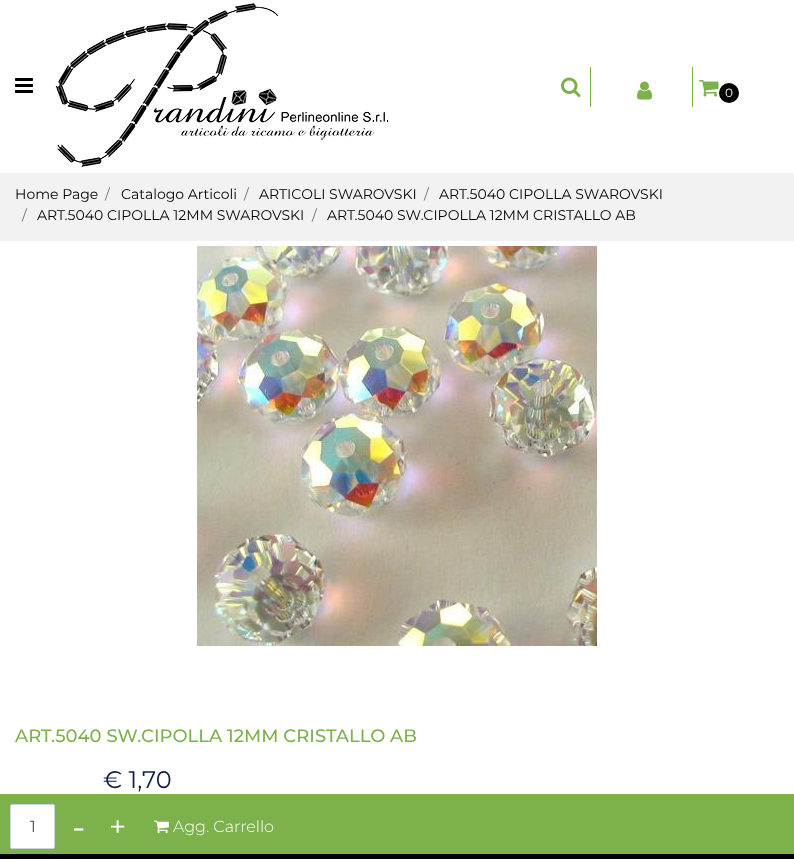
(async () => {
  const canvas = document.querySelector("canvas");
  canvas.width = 794;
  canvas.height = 859;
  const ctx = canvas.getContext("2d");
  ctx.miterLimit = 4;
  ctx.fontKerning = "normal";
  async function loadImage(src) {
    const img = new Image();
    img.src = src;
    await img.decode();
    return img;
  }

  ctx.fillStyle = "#f2f2f2";
  ctx.fillRect(0, 0, 794, 859);
  ctx.fillStyle = "#ffffff";
  ctx.fillRect(0, 0, 794, 173);
  ctx.drawImage(await loadImage("img/1.png"), 15, 78, 18, 15);
  ctx.drawImage(await loadImage("img/2.png"), 55, 3, 334, 164);
  ctx.drawImage(await loadImage("img/3.png"), 561, 77, 20, 20);
  ctx.fillStyle = "#7db14c";
  ctx.fillRect(692, 67, 1, 40);
  ctx.fillRect(590, 67, 1, 40);
  ctx.drawImage(await loadImage("img/4.png"), 637, 81, 15, 19);
  ctx.drawImage(await loadImage("img/5.png"), 699, 80, 20, 17);
  ctx.fillStyle = "#000000";
  ctx.beginPath();
  ctx.arc(729, 93, 10, 0, Math.PI * 2);
  ctx.fill();
  ctx.fillStyle = "#ffffff";
  ctx.fillRect(0, 241, 794, 553);
  ctx.drawImage(await loadImage("img/6.png"), 197, 246, 400, 400);
  ctx.fillStyle = "#7db14c";
  ctx.fillRect(0, 794, 794, 60);
  ctx.fillStyle = "#ffffff";
  ctx.beginPath();
  ctx.roundRect(10.5, 804.5, 44, 44, 1.5);
  ctx.fill();
  ctx.strokeStyle = "#ced4da";
  ctx.stroke();
  ctx.drawImage(await loadImage("img/7.png"), 154, 820, 15, 14);
  ctx.fillStyle = "#000000";
  ctx.fillRect(0, 854, 794, 5);
  ctx.font = "12px Montserrat";
  ctx.fillStyle = "#ffffff";
  ctx.fillText("0", 725, 97);
  ctx.font = "14px Montserrat";
  ctx.fillStyle = "#000000";
  ctx.fillText("Home Page", 15, 199);
  ctx.fillStyle = "#6c757d";
  ctx.fillText("/", 105, 199);
  ctx.fillStyle = "#000000";
  ctx.fillText("Catalogo Articoli", 121, 199);
  ctx.fillStyle = "#6c757d";
  ctx.fillText("/", 244, 199);
  ctx.fillStyle = "#000000";
  ctx.fillText("ARTICOLI SWAROVSKI", 259, 199);
  ctx.fillStyle = "#6c757d";
  ctx.fillText("/", 424, 199);
  ctx.fillStyle = "#000000";
  ctx.fillText("ART.5040 CIPOLLA SWAROVSKI", 439, 199);
  ctx.fillStyle = "#6c757d";
  ctx.fillText("/", 22, 220);
  ctx.fillStyle = "#000000";
  ctx.fillText("ART.5040 CIPOLLA 12MM SWAROVSKI", 37, 220);
  ctx.fillStyle = "#6c757d";
  ctx.fillText("/", 312, 220);
  ctx.fillStyle = "#000000";
  ctx.fillText("ART.5040 SW.CIPOLLA 12MM CRISTALLO AB", 327, 220);
  ctx.font = "500 18px Montserrat";
  ctx.fillStyle = "#7db14c";
  ctx.fillText("ART.5040 SW.CIPOLLA 12MM CRISTALLO AB", 15, 742);
  ctx.font = "24px Montserrat";
  ctx.fillStyle = "#0e1d42";
  ctx.fillText("€ 1,70", 103, 788);
  ctx.font = "16px Montserrat";
  ctx.fillStyle = "#495057";
  ctx.fillText("1", 30, 832);
  ctx.font = "35px Montserrat";
  ctx.fillStyle = "#ffffff";
  ctx.fillText("-", 72, 839);
  ctx.font = "30px Montserrat";
  ctx.fillText("+", 109, 837);
  ctx.font = "300 16px Montserrat";
  ctx.fillText("Agg. Carrello", 173, 832);
})();
